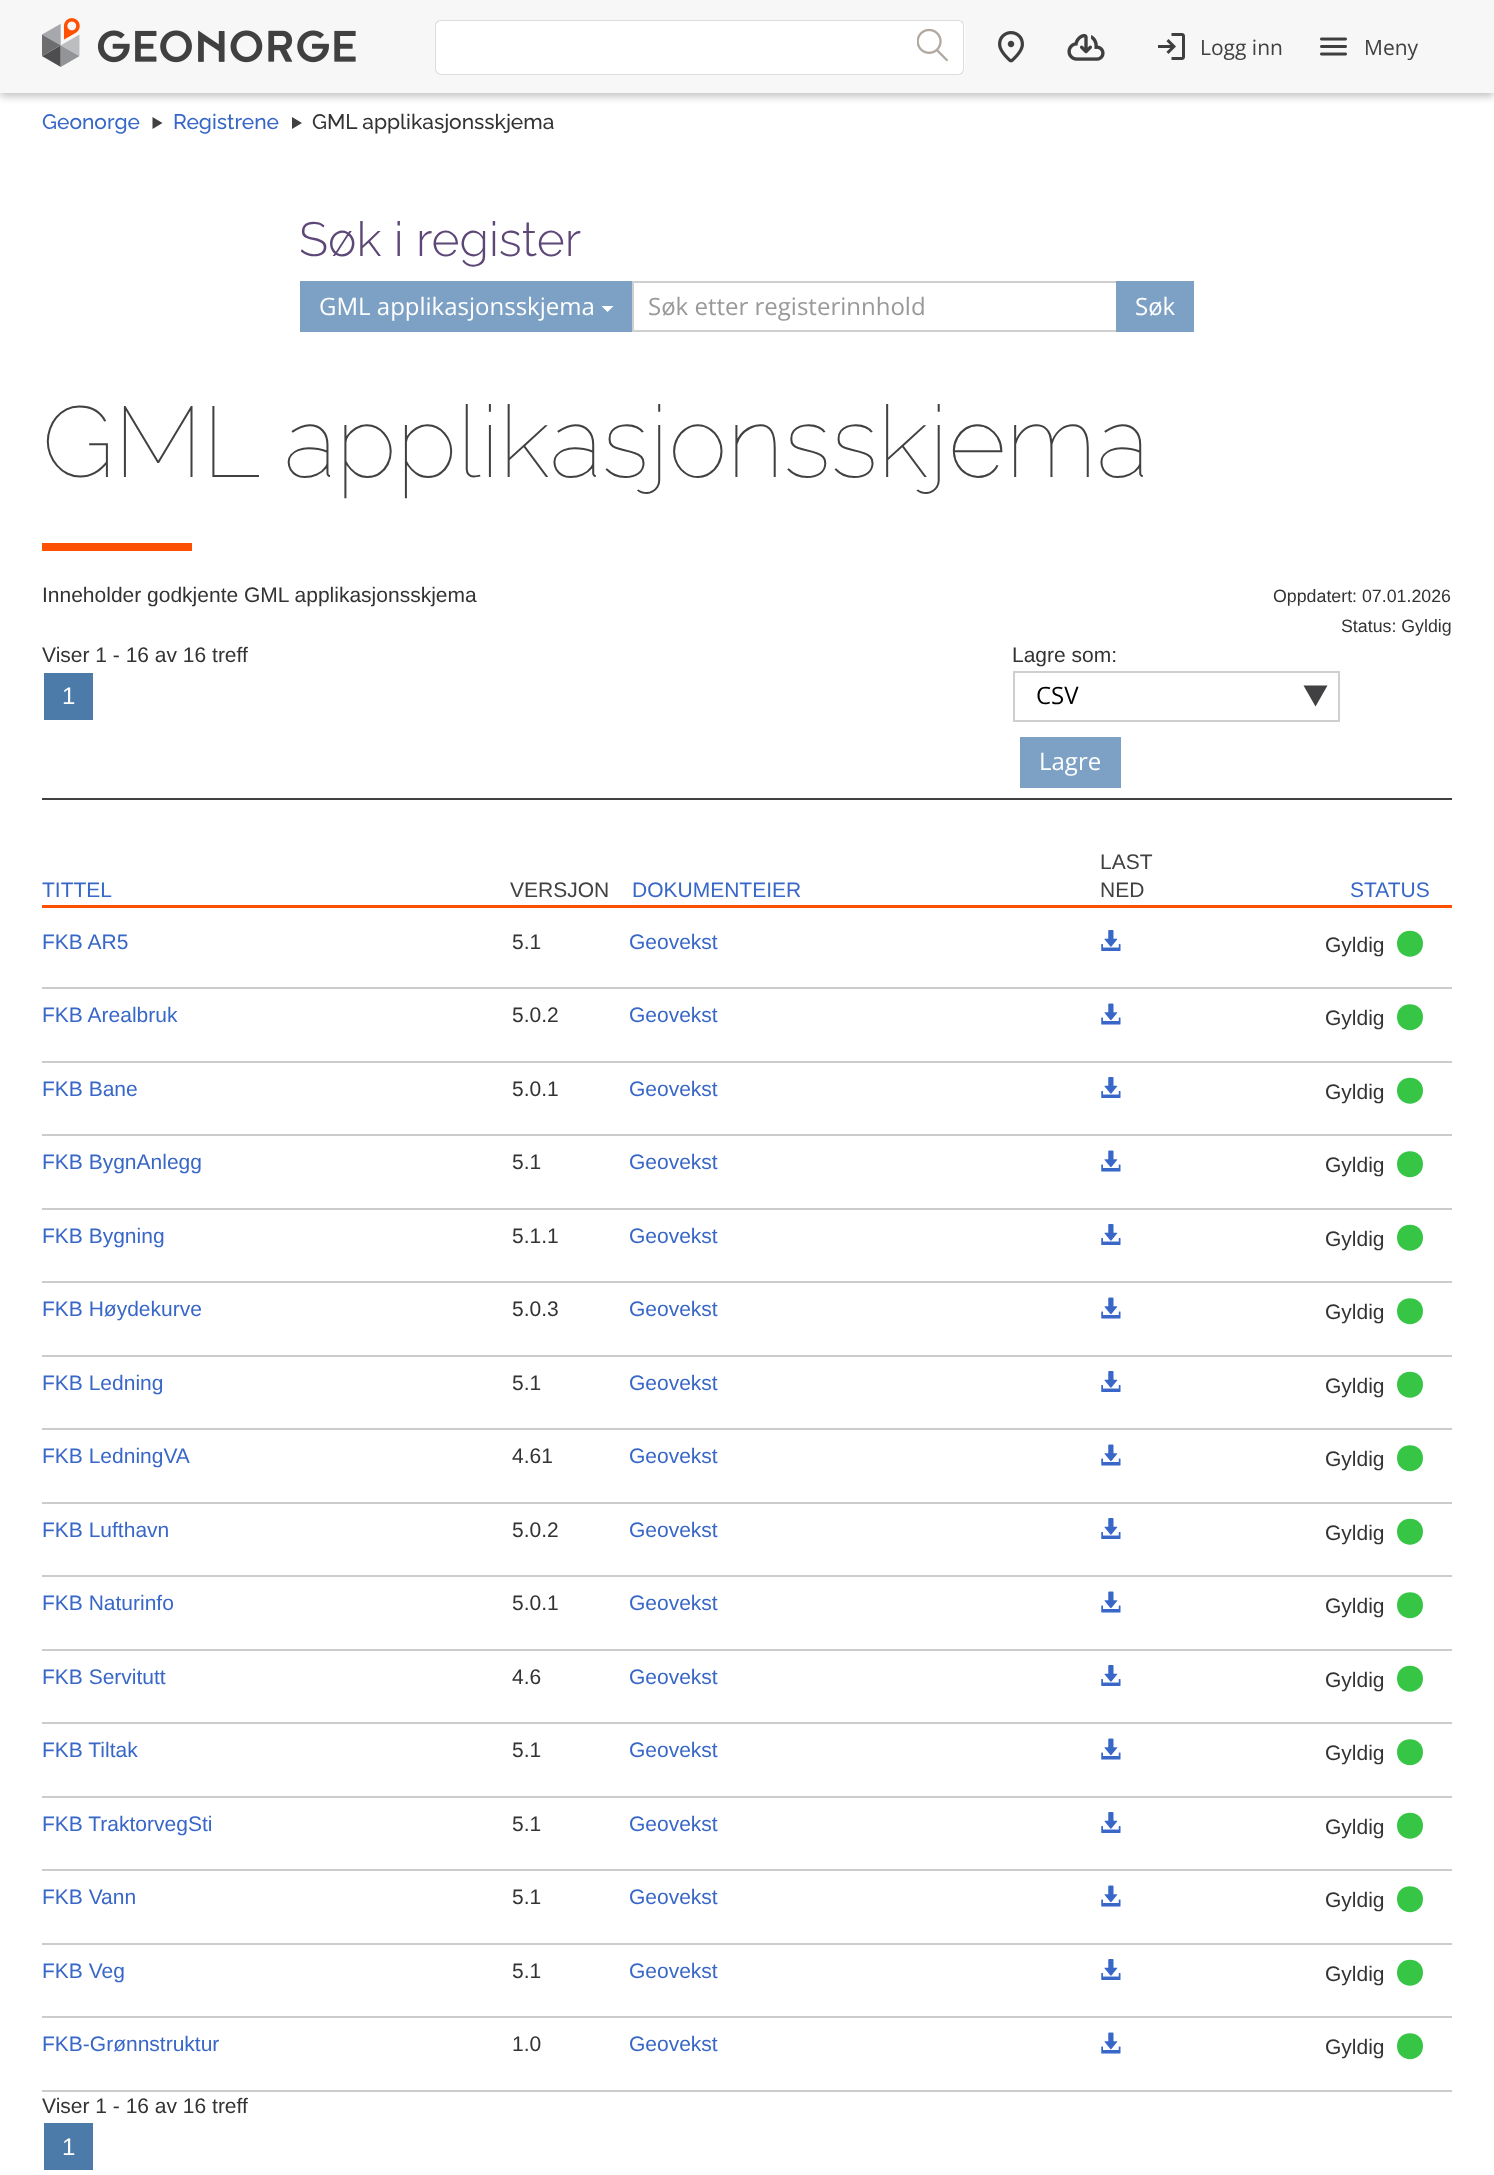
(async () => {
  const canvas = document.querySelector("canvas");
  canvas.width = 1494;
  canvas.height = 2175;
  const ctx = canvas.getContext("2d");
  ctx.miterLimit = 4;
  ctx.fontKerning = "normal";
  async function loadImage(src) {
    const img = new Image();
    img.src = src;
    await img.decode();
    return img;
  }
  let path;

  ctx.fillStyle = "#ffffff";
  ctx.fillRect(0, 0, 1494, 2175);
  ctx.fillStyle = "rgba(0, 0, 0, 0.26)";
  ctx.filter = "blur(4px)";
  ctx.beginPath();
  ctx.rect(0, 3, 1494, 93);
  ctx.fill();
  ctx.filter = "none";
  ctx.fillStyle = "#f7f7f7";
  ctx.fillRect(0, 0, 1494, 93);
  ctx.drawImage(await loadImage("img/1.png"), 42, 18, 314, 49);
  ctx.fillStyle = "#ffffff";
  ctx.beginPath();
  ctx.roundRect(435, 20, 467, 55, [6, 0, 0, 6]);
  ctx.fill();
  ctx.fillStyle = "#dfdcda";
  path = new Path2D("M441 20H902V75H441C438 75 435 72 435 69V26C435 22 438 20 441 20ZM441 21H902V74H441C439 74 436 71 436 69V26C436 23 439 21 441 21Z");
  ctx.fill(path, "evenodd");
  ctx.fillStyle = "#ffffff";
  ctx.beginPath();
  ctx.roundRect(902, 20, 63, 55, [0, 6, 6, 0]);
  ctx.fill();
  ctx.fillStyle = "#dfdcda";
  path = new Path2D("M902 20H958C962 20 964 22 964 26V69C964 72 962 75 958 75H902ZM902 21H958C961 21 963 23 963 26V69C963 71 961 74 958 74H902Z");
  ctx.fill(path, "evenodd");
  ctx.drawImage(await loadImage("img/2.png"), 917, 29, 31, 33);
  ctx.drawImage(await loadImage("img/3.png"), 998, 31, 26, 32);
  ctx.drawImage(await loadImage("img/4.png"), 1067, 33, 38, 28);
  ctx.drawImage(await loadImage("img/5.png"), 1158, 33, 27, 27);
  ctx.drawImage(await loadImage("img/6.png"), 1320, 37, 27, 19);
  ctx.fillStyle = "#414042";
  path = new Path2D("M162.5 123L152.5 129V117Z");
  ctx.fill(path);
  path = new Path2D("M302 123L292 129V117Z");
  ctx.fill(path);
  ctx.fillStyle = "#7da1c4";
  ctx.fillRect(300, 281, 332, 51);
  ctx.fillStyle = "#ffffff";
  path = new Path2D("M601.5 306H613.5L607.5 312Z");
  ctx.fill(path);
  ctx.strokeStyle = "#cfcfcf";
  ctx.lineWidth = 2;
  ctx.strokeRect(633, 282, 484, 49);
  for (const [x, y, w, h, color] of [
    [1116, 281, 78, 51, "#7da1c4"],
    [42, 543, 150, 8, "#fe5000"],
    [44, 673, 49, 47, "#4c7aa9"],
  ]) {
    ctx.fillStyle = color;
    ctx.fillRect(x, y, w, h);
  }
  ctx.fillStyle = "#414042";
  path = new Path2D("M1303.5 685.5L1315.5 706.5L1327.5 685.5Z");
  ctx.fill(path);
  ctx.strokeRect(1014, 672, 325, 49);
  for (const [x, y, w, h, color] of [
    [1020, 737, 101, 51, "#7da1c4"],
    [42, 798, 1410, 2, "#414042"],
    [42, 905, 1410, 3, "#fe5000"],
    [42, 987, 1410, 2, "#cccccc"],
  ]) {
    ctx.fillStyle = color;
    ctx.fillRect(x, y, w, h);
  }
  ctx.drawImage(await loadImage("img/7.png"), 1101, 930, 20, 21);
  ctx.fillStyle = "#36c545";
  path = new Path2D("M1423 943.5C1423 961 1397 961 1397 943.5C1397 926.5 1423 926.5 1423 943.5Z");
  ctx.fill(path);
  ctx.fillStyle = "#cccccc";
  ctx.fillRect(42, 1061, 1410, 2);
  ctx.drawImage(await loadImage("img/8.png"), 1101, 1003, 20, 22);
  ctx.fillStyle = "#36c545";
  path = new Path2D("M1423 1017C1423 1034.5 1397 1034.5 1397 1017C1397 1000 1423 1000 1423 1017Z");
  ctx.fill(path);
  ctx.fillStyle = "#cccccc";
  ctx.fillRect(42, 1134, 1410, 2);
  ctx.drawImage(await loadImage("img/7.png"), 1101, 1077, 20, 21);
  ctx.fillStyle = "#36c545";
  path = new Path2D("M1423 1090.5C1423 1108 1397 1108 1397 1090.5C1397 1073.5 1423 1073.5 1423 1090.5Z");
  ctx.fill(path);
  ctx.fillStyle = "#cccccc";
  ctx.fillRect(42, 1208, 1410, 2);
  ctx.drawImage(await loadImage("img/8.png"), 1101, 1150, 20, 22);
  ctx.fillStyle = "#36c545";
  path = new Path2D("M1423 1164C1423 1181.5 1397 1181.5 1397 1164C1397 1147 1423 1147 1423 1164Z");
  ctx.fill(path);
  ctx.fillStyle = "#cccccc";
  ctx.fillRect(42, 1281, 1410, 2);
  ctx.drawImage(await loadImage("img/7.png"), 1101, 1224, 20, 21);
  ctx.fillStyle = "#36c545";
  path = new Path2D("M1423 1237.5C1423 1255 1397 1255 1397 1237.5C1397 1220.5 1423 1220.5 1423 1237.5Z");
  ctx.fill(path);
  ctx.fillStyle = "#cccccc";
  ctx.fillRect(42, 1355, 1410, 2);
  ctx.drawImage(await loadImage("img/8.png"), 1101, 1297, 20, 22);
  ctx.fillStyle = "#36c545";
  path = new Path2D("M1423 1311C1423 1328.5 1397 1328.5 1397 1311C1397 1294 1423 1294 1423 1311Z");
  ctx.fill(path);
  ctx.fillStyle = "#cccccc";
  ctx.fillRect(42, 1428, 1410, 2);
  ctx.drawImage(await loadImage("img/7.png"), 1101, 1371, 20, 21);
  ctx.fillStyle = "#36c545";
  path = new Path2D("M1423 1384.5C1423 1402 1397 1402 1397 1384.5C1397 1367.5 1423 1367.5 1423 1384.5Z");
  ctx.fill(path);
  ctx.fillStyle = "#cccccc";
  ctx.fillRect(42, 1502, 1410, 2);
  ctx.drawImage(await loadImage("img/8.png"), 1101, 1444, 20, 22);
  ctx.fillStyle = "#36c545";
  path = new Path2D("M1423 1458C1423 1475.5 1397 1475.5 1397 1458C1397 1441 1423 1441 1423 1458Z");
  ctx.fill(path);
  ctx.fillStyle = "#cccccc";
  ctx.fillRect(42, 1575, 1410, 2);
  ctx.drawImage(await loadImage("img/7.png"), 1101, 1518, 20, 21);
  ctx.fillStyle = "#36c545";
  path = new Path2D("M1423 1531.5C1423 1549 1397 1549 1397 1531.5C1397 1514.5 1423 1514.5 1423 1531.5Z");
  ctx.fill(path);
  ctx.fillStyle = "#cccccc";
  ctx.fillRect(42, 1649, 1410, 2);
  ctx.drawImage(await loadImage("img/8.png"), 1101, 1591, 20, 22);
  ctx.fillStyle = "#36c545";
  path = new Path2D("M1423 1605C1423 1622.5 1397 1622.5 1397 1605C1397 1588 1423 1588 1423 1605Z");
  ctx.fill(path);
  ctx.fillStyle = "#cccccc";
  ctx.fillRect(42, 1722, 1410, 2);
  ctx.drawImage(await loadImage("img/7.png"), 1101, 1665, 20, 21);
  ctx.fillStyle = "#36c545";
  path = new Path2D("M1423 1678.5C1423 1696 1397 1696 1397 1678.5C1397 1661.5 1423 1661.5 1423 1678.5Z");
  ctx.fill(path);
  ctx.fillStyle = "#cccccc";
  ctx.fillRect(42, 1796, 1410, 2);
  ctx.drawImage(await loadImage("img/8.png"), 1101, 1738, 20, 22);
  ctx.fillStyle = "#36c545";
  path = new Path2D("M1423 1752C1423 1769.5 1397 1769.5 1397 1752C1397 1735 1423 1735 1423 1752Z");
  ctx.fill(path);
  ctx.fillStyle = "#cccccc";
  ctx.fillRect(42, 1869, 1410, 2);
  ctx.drawImage(await loadImage("img/7.png"), 1101, 1812, 20, 21);
  ctx.fillStyle = "#36c545";
  path = new Path2D("M1423 1825.5C1423 1843 1397 1843 1397 1825.5C1397 1808.5 1423 1808.5 1423 1825.5Z");
  ctx.fill(path);
  ctx.fillStyle = "#cccccc";
  ctx.fillRect(42, 1943, 1410, 2);
  ctx.drawImage(await loadImage("img/8.png"), 1101, 1885, 20, 22);
  ctx.fillStyle = "#36c545";
  path = new Path2D("M1423 1899C1423 1916.5 1397 1916.5 1397 1899C1397 1882 1423 1882 1423 1899Z");
  ctx.fill(path);
  ctx.fillStyle = "#cccccc";
  ctx.fillRect(42, 2016, 1410, 2);
  ctx.drawImage(await loadImage("img/7.png"), 1101, 1959, 20, 21);
  ctx.fillStyle = "#36c545";
  path = new Path2D("M1423 1972.5C1423 1990 1397 1990 1397 1972.5C1397 1955.5 1423 1955.5 1423 1972.5Z");
  ctx.fill(path);
  ctx.fillStyle = "#cccccc";
  ctx.fillRect(42, 2090, 1410, 2);
  ctx.drawImage(await loadImage("img/8.png"), 1101, 2032, 20, 22);
  ctx.fillStyle = "#36c545";
  path = new Path2D("M1423 2046C1423 2063.5 1397 2063.5 1397 2046C1397 2029 1423 2029 1423 2046Z");
  ctx.fill(path);
  ctx.fillStyle = "#4c7aa9";
  ctx.fillRect(44, 2123, 49, 47);
  ctx.font = "21px Open Sans";
  ctx.fillStyle = "#414042";
  ctx.fillText("Logg inn", 1200, 55);
  ctx.fillText("Meny", 1364, 55);
  ctx.font = "500 21px Raleway";
  ctx.fillStyle = "#3867c8";
  ctx.fillText("Geonorge", 42, 129);
  ctx.fillText("Registrene", 173, 129);
  ctx.fillStyle = "#333333";
  ctx.fillText("GML applikasjonsskjema", 312, 129);
  ctx.font = "300 48px Raleway";
  ctx.fillStyle = "#5d4777";
  ctx.fillText("Søk i register", 299, 256);
  ctx.font = "24px Open Sans";
  ctx.fillStyle = "#ffffff";
  ctx.fillText("GML applikasjonsskjema", 319, 315);
  ctx.fillStyle = "#999999";
  ctx.fillText("Søk etter registerinnhold", 648, 315);
  ctx.fillStyle = "#ffffff";
  ctx.fillText("Søk", 1135, 315);
  ctx.font = "100 100px Raleway";
  ctx.fillStyle = "#414042";
  ctx.fillText("GML applikasjonsskjema", 42, 477);
  ctx.font = "21px Liberation Sans";
  ctx.fillStyle = "#333333";
  ctx.fillText("Inneholder godkjente GML applikasjonsskjema", 42, 602);
  ctx.font = "17.8px Liberation Sans";
  ctx.fillText("Oppdatert: 07.01.2026", 1273, 602);
  ctx.fillText("Status: Gyldig", 1341, 632);
  ctx.font = "21px Liberation Sans";
  ctx.fillText("Viser 1 - 16 av 16 treff", 42, 662);
  ctx.font = "24px Liberation Sans";
  ctx.fillStyle = "#ffffff";
  ctx.fillText("1", 62, 704);
  ctx.font = "21px Liberation Sans";
  ctx.fillStyle = "#333333";
  ctx.fillText("Lagre som:", 1012, 662);
  ctx.font = "24px Open Sans";
  ctx.fillStyle = "#000000";
  ctx.fillText("CSV", 1036, 704);
  ctx.fillStyle = "#ffffff";
  ctx.fillText("Lagre", 1039, 770);
  ctx.font = "21px Liberation Sans";
  ctx.fillStyle = "#3867c8";
  ctx.fillText("TITTEL", 42, 897);
  ctx.fillStyle = "#414042";
  ctx.fillText("VERSJON", 510, 897);
  ctx.fillStyle = "#3867c8";
  ctx.fillText("DOKUMENTEIER", 632, 897);
  ctx.fillStyle = "#414042";
  ctx.fillText("LAST", 1100, 869);
  ctx.fillText("NED", 1100, 897);
  ctx.fillStyle = "#3867c8";
  ctx.fillText("STATUS", 1350, 897);
  ctx.fillText("FKB AR5", 42, 949);
  ctx.fillStyle = "#333333";
  ctx.fillText("5.1", 512, 949);
  ctx.fillStyle = "#3867c8";
  ctx.fillText("Geovekst", 629, 949);
  ctx.fillStyle = "#333333";
  ctx.fillText("Gyldig", 1325, 952);
  ctx.fillStyle = "#3867c8";
  ctx.fillText("FKB Arealbruk", 42, 1022);
  ctx.fillStyle = "#333333";
  ctx.fillText("5.0.2", 512, 1022);
  ctx.fillStyle = "#3867c8";
  ctx.fillText("Geovekst", 629, 1022);
  ctx.fillStyle = "#333333";
  ctx.fillText("Gyldig", 1325, 1025);
  ctx.fillStyle = "#3867c8";
  ctx.fillText("FKB Bane", 42, 1096);
  ctx.fillStyle = "#333333";
  ctx.fillText("5.0.1", 512, 1096);
  ctx.fillStyle = "#3867c8";
  ctx.fillText("Geovekst", 629, 1096);
  ctx.fillStyle = "#333333";
  ctx.fillText("Gyldig", 1325, 1099);
  ctx.fillStyle = "#3867c8";
  ctx.fillText("FKB BygnAnlegg", 42, 1169);
  ctx.fillStyle = "#333333";
  ctx.fillText("5.1", 512, 1169);
  ctx.fillStyle = "#3867c8";
  ctx.fillText("Geovekst", 629, 1169);
  ctx.fillStyle = "#333333";
  ctx.fillText("Gyldig", 1325, 1172);
  ctx.fillStyle = "#3867c8";
  ctx.fillText("FKB Bygning", 42, 1243);
  ctx.fillStyle = "#333333";
  ctx.fillText("5.1.1", 512, 1243);
  ctx.fillStyle = "#3867c8";
  ctx.fillText("Geovekst", 629, 1243);
  ctx.fillStyle = "#333333";
  ctx.fillText("Gyldig", 1325, 1246);
  ctx.fillStyle = "#3867c8";
  ctx.fillText("FKB Høydekurve", 42, 1316);
  ctx.fillStyle = "#333333";
  ctx.fillText("5.0.3", 512, 1316);
  ctx.fillStyle = "#3867c8";
  ctx.fillText("Geovekst", 629, 1316);
  ctx.fillStyle = "#333333";
  ctx.fillText("Gyldig", 1325, 1319);
  ctx.fillStyle = "#3867c8";
  ctx.fillText("FKB Ledning", 42, 1390);
  ctx.fillStyle = "#333333";
  ctx.fillText("5.1", 512, 1390);
  ctx.fillStyle = "#3867c8";
  ctx.fillText("Geovekst", 629, 1390);
  ctx.fillStyle = "#333333";
  ctx.fillText("Gyldig", 1325, 1393);
  ctx.fillStyle = "#3867c8";
  ctx.fillText("FKB LedningVA", 42, 1463);
  ctx.fillStyle = "#333333";
  ctx.fillText("4.61", 512, 1463);
  ctx.fillStyle = "#3867c8";
  ctx.fillText("Geovekst", 629, 1463);
  ctx.fillStyle = "#333333";
  ctx.fillText("Gyldig", 1325, 1466);
  ctx.fillStyle = "#3867c8";
  ctx.fillText("FKB Lufthavn", 42, 1537);
  ctx.fillStyle = "#333333";
  ctx.fillText("5.0.2", 512, 1537);
  ctx.fillStyle = "#3867c8";
  ctx.fillText("Geovekst", 629, 1537);
  ctx.fillStyle = "#333333";
  ctx.fillText("Gyldig", 1325, 1540);
  ctx.fillStyle = "#3867c8";
  ctx.fillText("FKB Naturinfo", 42, 1610);
  ctx.fillStyle = "#333333";
  ctx.fillText("5.0.1", 512, 1610);
  ctx.fillStyle = "#3867c8";
  ctx.fillText("Geovekst", 629, 1610);
  ctx.fillStyle = "#333333";
  ctx.fillText("Gyldig", 1325, 1613);
  ctx.fillStyle = "#3867c8";
  ctx.fillText("FKB Servitutt", 42, 1684);
  ctx.fillStyle = "#333333";
  ctx.fillText("4.6", 512, 1684);
  ctx.fillStyle = "#3867c8";
  ctx.fillText("Geovekst", 629, 1684);
  ctx.fillStyle = "#333333";
  ctx.fillText("Gyldig", 1325, 1687);
  ctx.fillStyle = "#3867c8";
  ctx.fillText("FKB Tiltak", 42, 1757);
  ctx.fillStyle = "#333333";
  ctx.fillText("5.1", 512, 1757);
  ctx.fillStyle = "#3867c8";
  ctx.fillText("Geovekst", 629, 1757);
  ctx.fillStyle = "#333333";
  ctx.fillText("Gyldig", 1325, 1760);
  ctx.fillStyle = "#3867c8";
  ctx.fillText("FKB TraktorvegSti", 42, 1831);
  ctx.fillStyle = "#333333";
  ctx.fillText("5.1", 512, 1831);
  ctx.fillStyle = "#3867c8";
  ctx.fillText("Geovekst", 629, 1831);
  ctx.fillStyle = "#333333";
  ctx.fillText("Gyldig", 1325, 1834);
  ctx.fillStyle = "#3867c8";
  ctx.fillText("FKB Vann", 42, 1904);
  ctx.fillStyle = "#333333";
  ctx.fillText("5.1", 512, 1904);
  ctx.fillStyle = "#3867c8";
  ctx.fillText("Geovekst", 629, 1904);
  ctx.fillStyle = "#333333";
  ctx.fillText("Gyldig", 1325, 1907);
  ctx.fillStyle = "#3867c8";
  ctx.fillText("FKB Veg", 42, 1978);
  ctx.fillStyle = "#333333";
  ctx.fillText("5.1", 512, 1978);
  ctx.fillStyle = "#3867c8";
  ctx.fillText("Geovekst", 629, 1978);
  ctx.fillStyle = "#333333";
  ctx.fillText("Gyldig", 1325, 1981);
  ctx.fillStyle = "#3867c8";
  ctx.fillText("FKB-Grønnstruktur", 42, 2051);
  ctx.fillStyle = "#333333";
  ctx.fillText("1.0", 512, 2051);
  ctx.fillStyle = "#3867c8";
  ctx.fillText("Geovekst", 629, 2051);
  ctx.fillStyle = "#333333";
  ctx.fillText("Gyldig", 1325, 2054);
  ctx.fillText("Viser 1 - 16 av 16 treff", 42, 2113);
  ctx.font = "24px Liberation Sans";
  ctx.fillStyle = "#ffffff";
  ctx.fillText("1", 62, 2155);
})();
